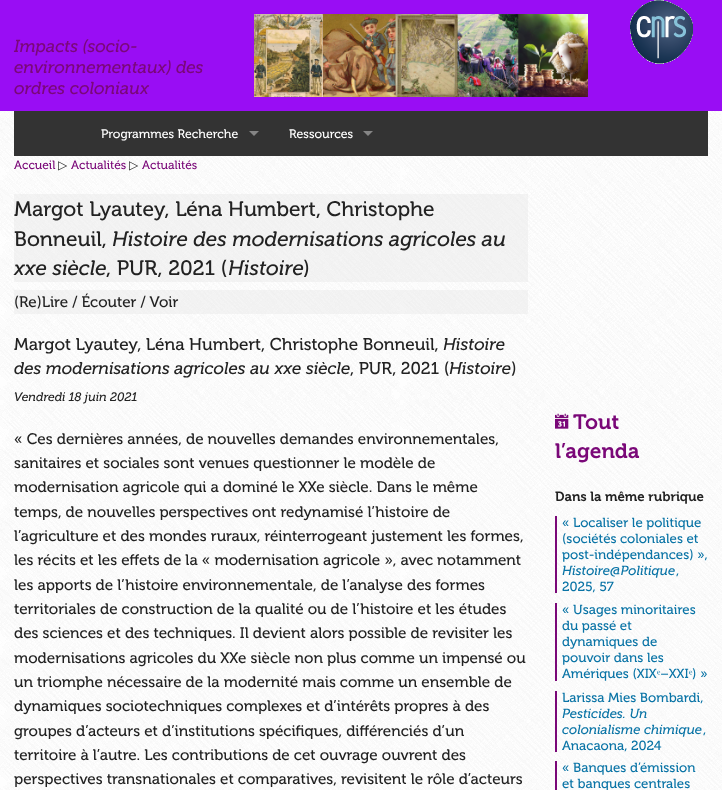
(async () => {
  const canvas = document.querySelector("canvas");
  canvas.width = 722;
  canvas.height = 790;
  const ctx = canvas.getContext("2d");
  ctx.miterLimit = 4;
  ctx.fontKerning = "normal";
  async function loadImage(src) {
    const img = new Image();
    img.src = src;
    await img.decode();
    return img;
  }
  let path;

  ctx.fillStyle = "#ffffff";
  ctx.fillRect(0, 0, 722, 790);
  ctx.drawImage(await loadImage("img/1.png"), 0, 111, 722, 679);
  ctx.fillStyle = "#990df4";
  ctx.fillRect(0, 0, 722, 111);
  ctx.drawImage(await loadImage("img/2.png"), 254, 14, 334, 83);
  ctx.drawImage(await loadImage("img/3.png"), 630, 0, 63, 64);
  ctx.fillStyle = "#333333";
  ctx.fillRect(14, 111, 694, 45);
  ctx.fillStyle = "#858585";
  path = new Path2D("M249 131H259L254 136Z");
  ctx.fill(path);
  path = new Path2D("M363 131H373L368 136Z");
  ctx.fill(path);
  ctx.fillStyle = "rgba(230, 230, 230, 0.4)";
  ctx.fillRect(14, 194, 514, 88);
  ctx.fillRect(14, 290, 514, 24);
  ctx.drawImage(await loadImage("img/4.png"), 555, 413, 14, 16);
  for (const [x, y, w, h, color] of [
    [555, 516, 2, 77, "#7a0878"],
    [555, 603, 2, 78, "#7a0878"],
    [555, 691, 2, 61, "#7a0878"],
    [555, 761, 2, 29, "#7a0878"],
  ]) {
    ctx.fillStyle = color;
    ctx.fillRect(x, y, w, h);
  }
  ctx.font = "italic 17.25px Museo";
  for (const [text, x, y] of [
    ["Impacts (socio-", 14, 52],
    ["environnementaux) des", 14, 73],
    ["ordres coloniaux", 14, 94],
  ]) {
    ctx.fillText(text, x, y);
  }
  ctx.font = "12.3px Museo";
  ctx.fillStyle = "#ffffff";
  ctx.fillText("Programmes Recherche", 101, 138);
  ctx.fillText("Ressources", 289, 138);
  ctx.font = "12px Museo";
  ctx.fillStyle = "#7a0878";
  ctx.fillText("Accueil", 14, 169);
  ctx.font = "12px DejaVu Sans";
  ctx.fillStyle = "#222222";
  ctx.fillText("▷", 58, 169);
  ctx.font = "12px Museo";
  ctx.fillStyle = "#7a0878";
  ctx.fillText("Actualités", 71, 169);
  ctx.font = "12px DejaVu Sans";
  ctx.fillStyle = "#222222";
  ctx.fillText("▷", 129, 169);
  ctx.font = "12px Museo";
  ctx.fillStyle = "#7a0878";
  ctx.fillText("Actualités", 142, 169);
  ctx.font = "20.9px Museo";
  ctx.fillStyle = "#222222";
  ctx.fillText("Margot Lyautey, Léna Humbert, Christophe", 14, 216);
  ctx.fillText("Bonneuil,", 14, 246);
  ctx.font = "italic 20.9px Museo";
  ctx.fillText("Histoire des modernisations agricoles au", 112, 246);
  ctx.fillText("xxe siècle", 14, 275);
  ctx.font = "20.9px Museo";
  ctx.fillText(", PUR, 2021 (", 106, 275);
  ctx.font = "italic 20.9px Museo";
  ctx.fillText("Histoire", 228, 275);
  ctx.font = "20.9px Museo";
  ctx.fillText(")", 303, 275);
  ctx.font = "15.2px Museo";
  ctx.fillText("(Re)Lire / Écouter / Voir", 14, 307);
  ctx.font = "17.1px Museo";
  ctx.fillText("Margot Lyautey, Léna Humbert, Christophe Bonneuil,", 14, 350);
  ctx.font = "italic 17.1px Museo";
  ctx.fillText("Histoire", 443, 350);
  ctx.fillText("des modernisations agricoles au xxe siècle", 14, 374);
  ctx.font = "17.1px Museo";
  ctx.fillText(", PUR, 2021 (", 350, 374);
  ctx.font = "italic 17.1px Museo";
  ctx.fillText("Histoire", 449, 374);
  ctx.font = "17.1px Museo";
  ctx.fillText(")", 511, 374);
  ctx.font = "italic 12.25px Museo";
  ctx.fillText("Vendredi 18 juin 2021", 14, 401);
  ctx.font = "15.2px Museo";
  for (const [text, x, y] of [
    ["« Ces dernières années, de nouvelles demandes environnementales,", 14, 444],
    ["sanitaires et sociales sont venues questionner le modèle de", 14, 468],
    ["modernisation agricole qui a dominé le XXe siècle. Dans le même", 14, 492],
    ["temps, de nouvelles perspectives ont redynamisé l’histoire de", 14, 517],
    ["l’agriculture et des mondes ruraux, réinterrogeant justement les formes,", 14, 541],
    ["les récits et les effets de la « modernisation agricole », avec notamment", 14, 565],
    ["les apports de l’histoire environnementale, de l’analyse des formes", 14, 590],
    ["territoriales de construction de la qualité ou de l’histoire et les études", 14, 614],
    ["des sciences et des techniques. Il devient alors possible de revisiter les", 14, 638],
    ["modernisations agricoles du XXe siècle non plus comme un impensé ou", 14, 663],
    ["un triomphe nécessaire de la modernité mais comme un ensemble de", 14, 687],
    ["dynamiques sociotechniques complexes et d’intérêts propres à des", 14, 711],
    ["groupes d’acteurs et d’institutions spécifiques, différenciés d’un", 14, 736],
    ["territoire à l’autre. Les contributions de cet ouvrage ouvrent des", 14, 760],
    ["perspectives transnationales et comparatives, revisitent le rôle d’acteurs", 14, 784],
  ]) {
    ctx.fillText(text, x, y);
  }
  ctx.font = "600 20.9px 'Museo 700'";
  ctx.fillStyle = "#7a0878";
  ctx.fillText("Tout", 573, 429);
  ctx.fillText("l’agenda", 555, 458);
  ctx.font = "600 13.25px 'Museo 700'";
  ctx.fillStyle = "#222222";
  ctx.fillText("Dans la même rubrique", 555, 501);
  ctx.font = "13.25px Museo";
  ctx.fillStyle = "#0a74a6";
  for (const [text, x, y] of [
    ["« Localiser le politique", 562, 527],
    ["(sociétés coloniales et", 562, 543],
    ["post-indépendances) »,", 562, 559],
  ]) {
    ctx.fillText(text, x, y);
  }
  ctx.font = "italic 13.25px Museo";
  ctx.fillText("Histoire@Politique", 562, 575);
  ctx.font = "13.25px Museo";
  for (const [text, x, y] of [
    [",", 676, 575],
    ["2025, 57", 562, 591],
    ["« Usages minoritaires", 562, 614],
    ["du passé et", 562, 630],
    ["dynamiques de", 562, 646],
    ["pouvoir dans les", 562, 662],
    ["Amériques (XIX –XXI", 562, 678],
  ]) {
    ctx.fillText(text, x, y);
  }
  ctx.font = "13.25px Liberation Serif";
  ctx.fillText("ᵉ", 657, 678);
  ctx.fillText("ᵉ", 689, 678);
  ctx.font = "13.25px Museo";
  ctx.fillText(") »", 692, 678);
  ctx.fillText("Larissa Mies Bombardi,", 562, 702);
  ctx.font = "italic 13.25px Museo";
  ctx.fillText("Pesticides. Un", 562, 718);
  ctx.fillText("colonialisme chimique", 562, 734);
  ctx.font = "13.25px Museo";
  for (const [text, x, y] of [
    [",", 703, 734],
    ["Anacaona, 2024", 562, 750],
    ["« Banques d’émission", 562, 772],
    ["et banques centrales", 562, 788],
  ]) {
    ctx.fillText(text, x, y);
  }
})();
